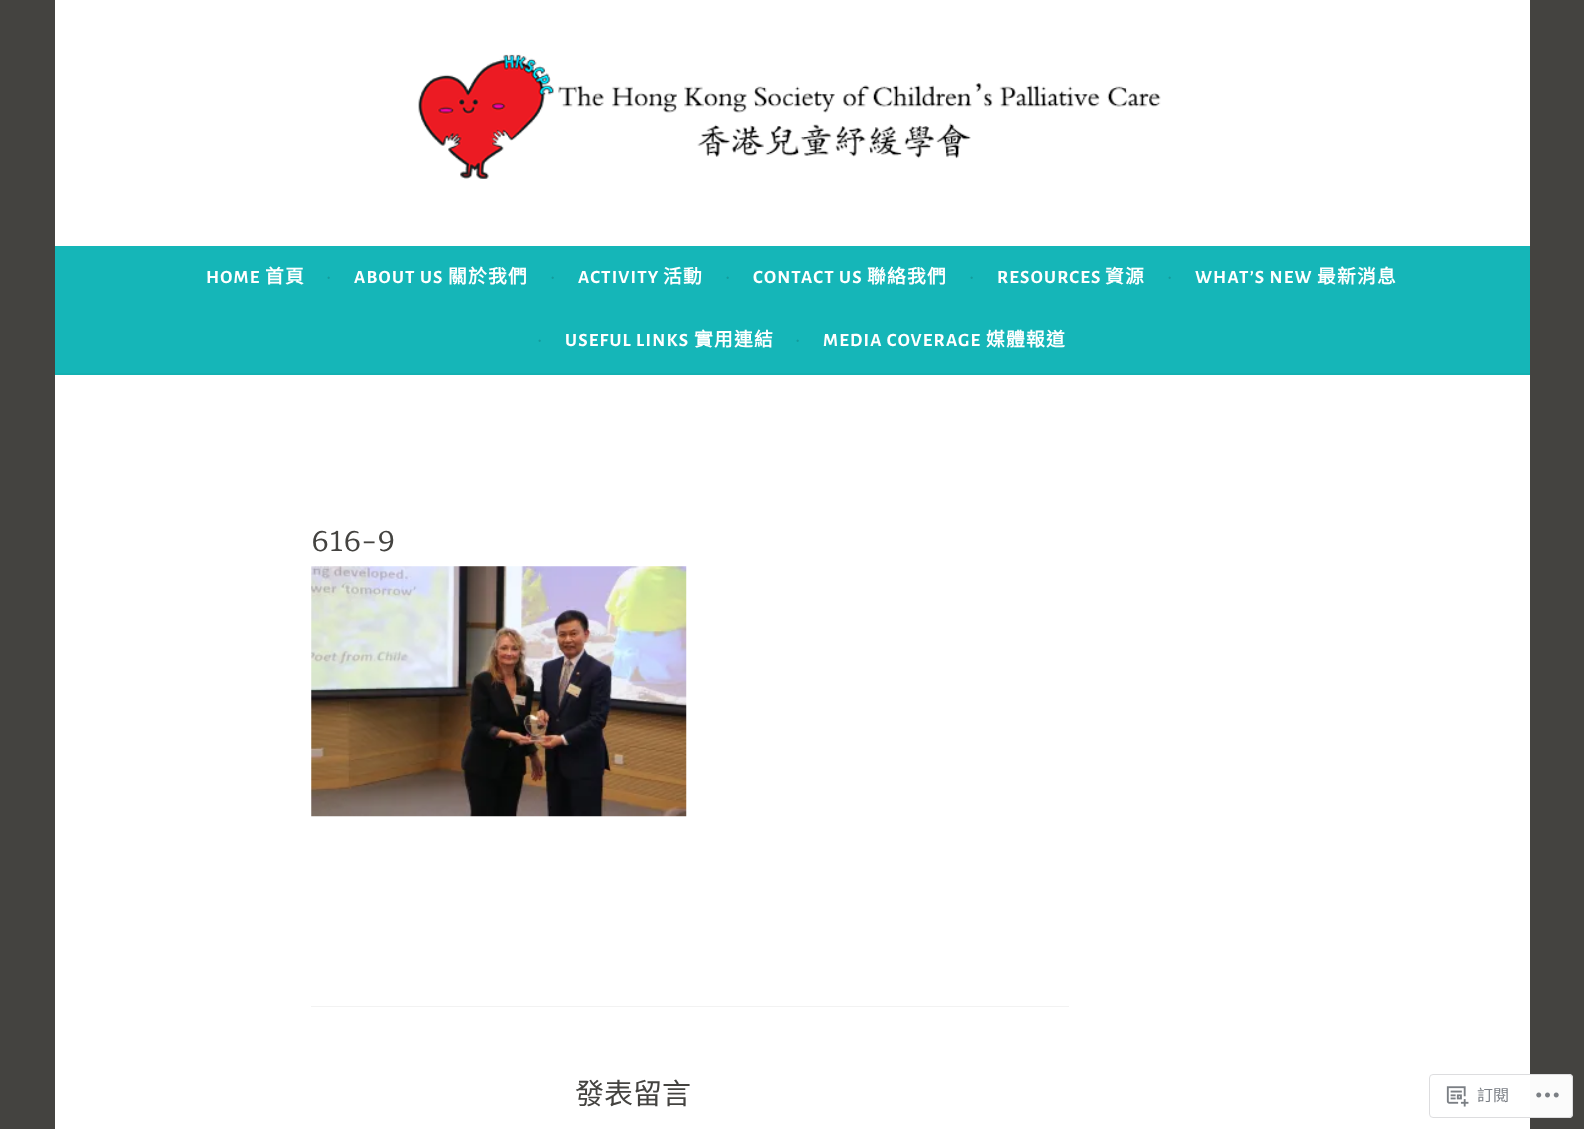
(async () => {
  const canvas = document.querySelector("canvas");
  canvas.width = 1584;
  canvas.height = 1129;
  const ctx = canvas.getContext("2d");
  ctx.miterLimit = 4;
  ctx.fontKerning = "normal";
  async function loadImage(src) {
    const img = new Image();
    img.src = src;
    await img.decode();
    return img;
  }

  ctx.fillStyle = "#444340";
  ctx.fillRect(0, 0, 1584, 1129);
  ctx.fillStyle = "#ffffff";
  ctx.fillRect(55, 0, 1475, 246);
  ctx.drawImage(await loadImage("img/1.png"), 418, 54, 743, 125);
  for (const [x, y, w, h, color] of [
    [55, 246, 1475, 127, "#15b6b8"],
    [55, 373, 1475, 2, "#14b1b2"],
    [55, 375, 1475, 754, "#ffffff"],
  ]) {
    ctx.fillStyle = color;
    ctx.fillRect(x, y, w, h);
  }
  ctx.drawImage(await loadImage("img/2.png"), 311, 566, 376, 251);
  ctx.fillStyle = "#f2f2f2";
  ctx.fillRect(311, 1006, 758, 1);
  ctx.fillStyle = "rgba(255, 255, 255, 0.98)";
  ctx.beginPath();
  ctx.roundRect(1429, 1074, 144, 44, 4);
  ctx.fill();
  ctx.beginPath();
  ctx.roundRect(1429.5, 1074.5, 143, 43, 3.5);
  ctx.strokeStyle = "rgba(220, 220, 222, 0.98)";
  ctx.stroke();
  ctx.drawImage(await loadImage("img/3.png"), 1446, 1086, 23, 21);
  ctx.drawImage(await loadImage("img/4.png"), 1536, 1092, 23, 6);
  ctx.letterSpacing = "1.25px";
  ctx.font = "bold 18.75px Alegreya Sans";
  ctx.fillStyle = "#ffffff";
  ctx.fillText("HOME", 206, 283);
  ctx.font = "bold 18.75px Noto Sans CJK TC";
  ctx.fillText("首頁", 265, 283);
  ctx.letterSpacing = "0px";
  ctx.font = "22px Alegreya Sans";
  ctx.fillStyle = "#129b9c";
  ctx.fillText("•", 326, 283);
  ctx.letterSpacing = "1.25px";
  ctx.font = "bold 18.75px Alegreya Sans";
  ctx.fillStyle = "#ffffff";
  ctx.fillText("ABOUT US", 354, 283);
  ctx.font = "bold 18.75px Noto Sans CJK TC";
  ctx.fillText("關於我們", 448, 283);
  ctx.letterSpacing = "0px";
  ctx.font = "22px Alegreya Sans";
  ctx.fillStyle = "#129b9c";
  ctx.fillText("•", 550, 283);
  ctx.letterSpacing = "1.25px";
  ctx.font = "bold 18.75px Alegreya Sans";
  ctx.fillStyle = "#ffffff";
  ctx.fillText("ACTIVITY", 578, 283);
  ctx.font = "bold 18.75px Noto Sans CJK TC";
  ctx.fillText("活動", 663, 283);
  ctx.letterSpacing = "0px";
  ctx.font = "22px Alegreya Sans";
  ctx.fillStyle = "#129b9c";
  ctx.fillText("•", 725, 283);
  ctx.letterSpacing = "1.25px";
  ctx.font = "bold 18.75px Alegreya Sans";
  ctx.fillStyle = "#ffffff";
  ctx.fillText("CONTACT US", 753, 283);
  ctx.font = "bold 18.75px Noto Sans CJK TC";
  ctx.fillText("聯絡我們", 867, 283);
  ctx.letterSpacing = "0px";
  ctx.font = "22px Alegreya Sans";
  ctx.fillStyle = "#129b9c";
  ctx.fillText("•", 969, 283);
  ctx.letterSpacing = "1.25px";
  ctx.font = "bold 18.75px Alegreya Sans";
  ctx.fillStyle = "#ffffff";
  ctx.fillText("RESOURCES", 997, 283);
  ctx.font = "bold 18.75px Noto Sans CJK TC";
  ctx.fillText("資源", 1105, 283);
  ctx.letterSpacing = "0px";
  ctx.font = "22px Alegreya Sans";
  ctx.fillStyle = "#129b9c";
  ctx.fillText("•", 1167, 283);
  ctx.letterSpacing = "1.25px";
  ctx.font = "bold 18.75px Alegreya Sans";
  ctx.fillStyle = "#ffffff";
  ctx.fillText("WHAT’S NEW", 1195, 283);
  ctx.font = "bold 18.75px Noto Sans CJK TC";
  ctx.fillText("最新消息", 1317, 283);
  ctx.letterSpacing = "0px";
  ctx.font = "22px Alegreya Sans";
  ctx.fillStyle = "#129b9c";
  ctx.fillText("•", 537, 346);
  ctx.letterSpacing = "1.25px";
  ctx.font = "bold 18.75px Alegreya Sans";
  ctx.fillStyle = "#ffffff";
  ctx.fillText("USEFUL LINKS", 565, 346);
  ctx.font = "bold 18.75px Noto Sans CJK TC";
  ctx.fillText("實用連結", 694, 346);
  ctx.letterSpacing = "0px";
  ctx.font = "22px Alegreya Sans";
  ctx.fillStyle = "#129b9c";
  ctx.fillText("•", 795, 346);
  ctx.letterSpacing = "1.25px";
  ctx.font = "bold 18.75px Alegreya Sans";
  ctx.fillStyle = "#ffffff";
  ctx.fillText("MEDIA COVERAGE", 823, 346);
  ctx.font = "bold 18.75px Noto Sans CJK TC";
  ctx.fillText("媒體報道", 986, 346);
  ctx.letterSpacing = "0px";
  ctx.font = "300 40px Yrsa";
  ctx.fillStyle = "#444340";
  ctx.fillText("616-9", 311, 551);
  ctx.font = "29px Noto Sans CJK TC";
  ctx.fillText("發表留言", 575, 1104);
  ctx.font = "16px Noto Sans CJK TC";
  ctx.fillStyle = "#7b7f85";
  ctx.fillText("訂閱", 1477, 1101);
})();
